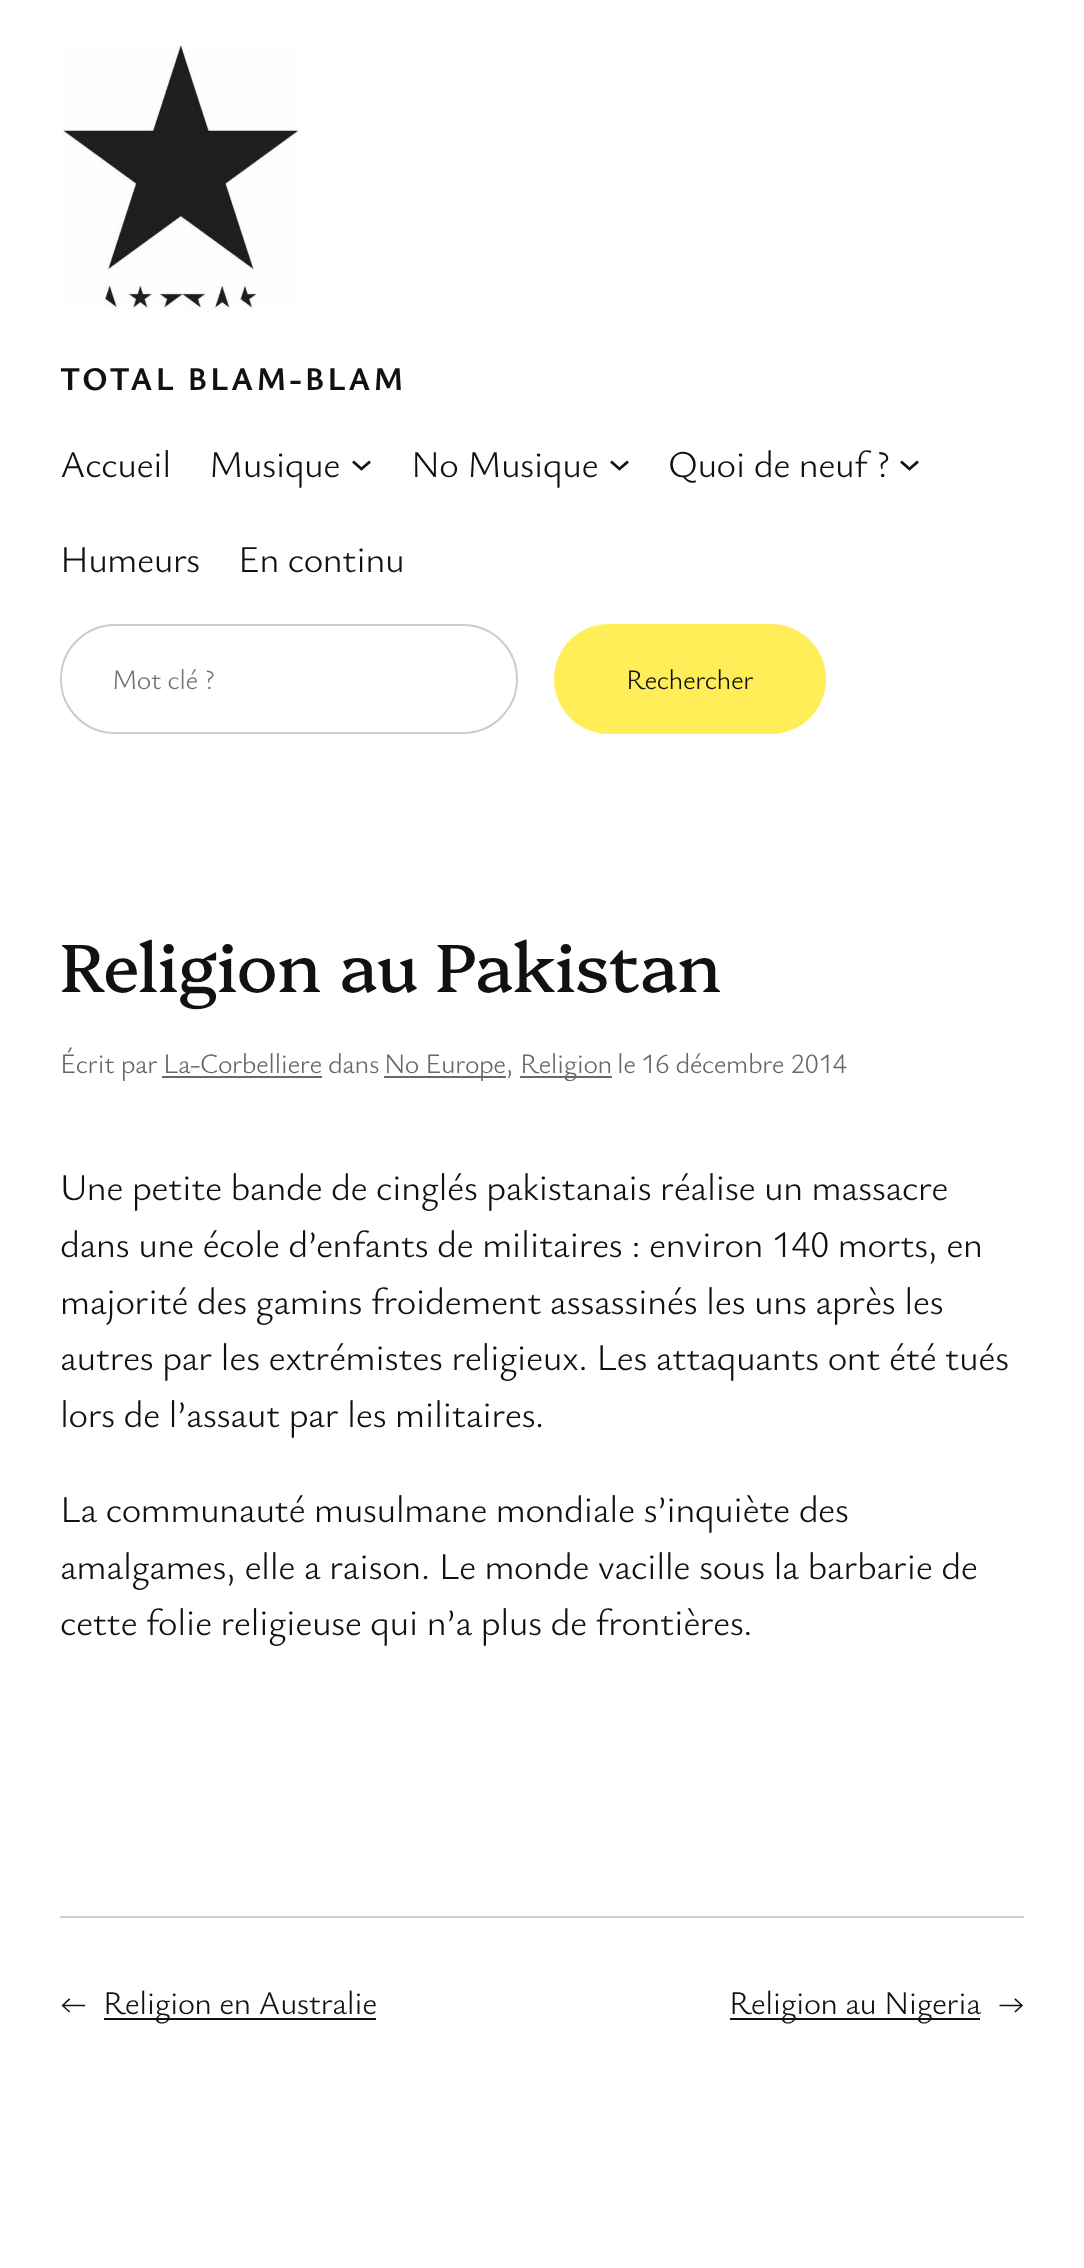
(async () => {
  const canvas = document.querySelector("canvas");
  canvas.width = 1084;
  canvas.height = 2268;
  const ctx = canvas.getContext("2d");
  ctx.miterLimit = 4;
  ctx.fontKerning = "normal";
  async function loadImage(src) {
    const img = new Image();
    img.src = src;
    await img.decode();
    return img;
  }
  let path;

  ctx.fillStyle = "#ffffff";
  ctx.fillRect(0, 0, 1084, 2268);
  ctx.drawImage(await loadImage("img/1.png"), 62, 45, 238, 265);
  path = new Path2D("M353 461.5L361.5 469L370 461.5");
  ctx.strokeStyle = "#111111";
  ctx.lineWidth = 2.8;
  ctx.stroke(path);
  path = new Path2D("M611 461.5L619.5 469L628 461.5");
  ctx.stroke(path);
  path = new Path2D("M901 461.5L909.5 469L918 461.5");
  ctx.stroke(path);
  ctx.beginPath();
  ctx.roundRect(61, 625, 456, 108, 54);
  ctx.strokeStyle = "#cccccc";
  ctx.lineWidth = 2;
  ctx.stroke();
  ctx.fillStyle = "#ffee58";
  ctx.beginPath();
  ctx.roundRect(554, 624, 272, 110, 55);
  ctx.fill();
  for (const [x, y, w, h, color] of [
    [162, 1076, 160, 2, "#686868"],
    [384, 1076, 122, 2, "#686868"],
    [520, 1076, 92, 2, "#686868"],
    [60, 1916, 964, 2, "#cfcfcf"],
    [104, 2018, 272, 2, "#111111"],
    [730, 2018, 250, 2, "#111111"],
  ]) {
    ctx.fillStyle = color;
    ctx.fillRect(x, y, w, h);
  }
  ctx.letterSpacing = "2.9px";
  ctx.font = "bold 32.9px Ysabeau Office";
  ctx.fillText("TOTAL BLAM-BLAM", 60, 390);
  ctx.letterSpacing = "-0.45px";
  ctx.font = "300 37.75px Ysabeau Office";
  for (const [text, x, y] of [
    ["Accueil", 60, 477],
    ["Musique", 209, 477],
    ["No Musique", 411, 477],
    ["Quoi de neuf ?", 668, 477],
    ["Humeurs", 60, 572],
    ["En continu", 238, 572],
  ]) {
    ctx.fillText(text, x, y);
  }
  ctx.font = "300 28px Ysabeau Office";
  ctx.fillStyle = "#757575";
  ctx.fillText("Mot clé ?", 112, 689);
  ctx.fillStyle = "#111111";
  ctx.fillText("Rechercher", 626, 689);
  ctx.letterSpacing = "-0.25px";
  ctx.font = "68.25px Platypi";
  ctx.fillText("Religion au Pakistan", 60, 992);
  ctx.letterSpacing = "-0.45px";
  ctx.font = "300 28px Ysabeau Office";
  ctx.fillStyle = "#686868";
  for (const [text, x, y] of [
    ["Écrit par", 60, 1073],
    ["La-Corbelliere", 163, 1073],
    ["dans", 328, 1073],
    ["No Europe,", 384, 1073],
    ["Religion", 520, 1073],
    ["le", 617, 1073],
    ["16 décembre 2014", 641, 1073],
  ]) {
    ctx.fillText(text, x, y);
  }
  ctx.font = "300 37.75px Ysabeau Office";
  ctx.fillStyle = "#111111";
  for (const [text, x, y] of [
    ["Une petite bande de cinglés pakistanais réalise un massacre", 60, 1200],
    ["dans une école d’enfants de militaires : environ 140 morts, en", 60, 1257],
    ["majorité des gamins froidement assassinés les uns après les", 60, 1314],
    ["autres par les extrémistes religieux. Les attaquants ont été tués", 60, 1370],
    ["lors de l’assaut par les militaires.", 60, 1427],
    ["La communauté musulmane mondiale s’inquiète des", 60, 1522],
    ["amalgames, elle a raison. Le monde vacille sous la barbarie de", 60, 1579],
    ["cette folie religieuse qui n’a plus de frontières.", 60, 1635],
  ]) {
    ctx.fillText(text, x, y);
  }
  ctx.font = "300 32.9px Ysabeau Office";
  for (const [text, x, y] of [
    ["←", 60, 2014],
    ["Religion en Australie", 103, 2014],
    ["Religion au Nigeria", 729, 2014],
    ["→", 998, 2014],
  ]) {
    ctx.fillText(text, x, y);
  }
})();
